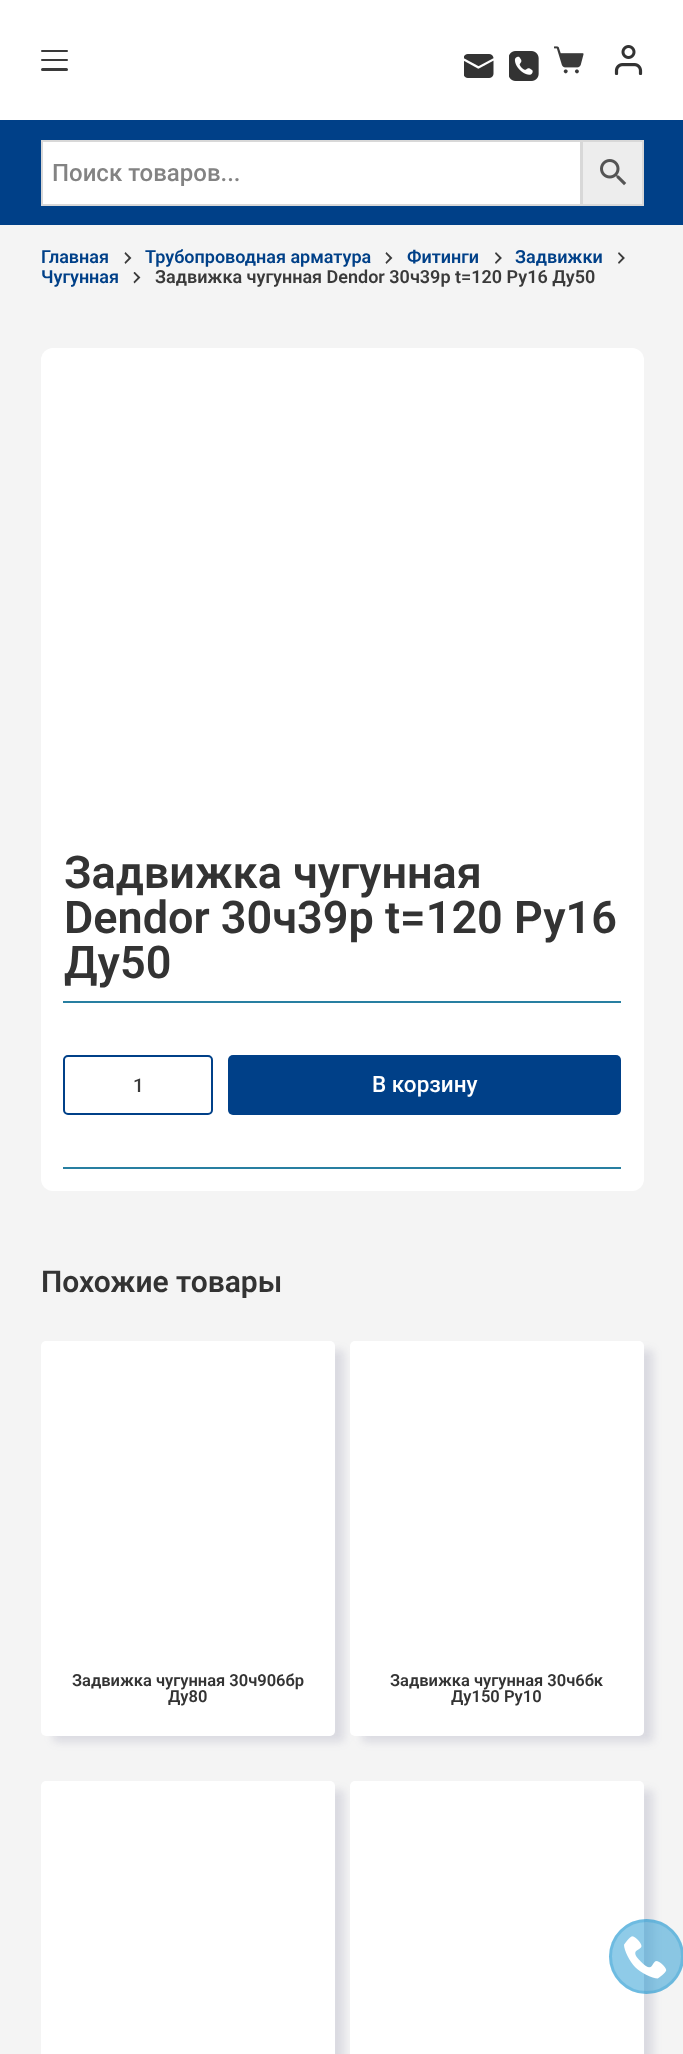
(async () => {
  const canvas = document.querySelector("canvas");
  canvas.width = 683;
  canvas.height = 2054;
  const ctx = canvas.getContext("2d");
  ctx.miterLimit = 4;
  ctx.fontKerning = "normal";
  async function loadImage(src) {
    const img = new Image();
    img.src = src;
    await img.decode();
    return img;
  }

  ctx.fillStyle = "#f4f4f4";
  ctx.fillRect(0, 0, 683, 2054);
  ctx.fillStyle = "#ffffff";
  ctx.fillRect(0, 0, 683, 120);
  ctx.fillStyle = "#3a3a3a";
  ctx.beginPath();
  ctx.roundRect(41, 50, 27, 2, 1);
  ctx.fill();
  ctx.beginPath();
  ctx.roundRect(41, 59, 27, 2, 1);
  ctx.fill();
  ctx.beginPath();
  ctx.roundRect(41, 68, 27, 3, 1.5);
  ctx.fill();
  ctx.drawImage(await loadImage("img/1.png"), 464, 54, 30, 24);
  ctx.drawImage(await loadImage("img/2.png"), 509, 51, 30, 30);
  ctx.drawImage(await loadImage("img/3.png"), 554, 46, 30, 28);
  ctx.drawImage(await loadImage("img/4.png"), 614, 45, 29, 30);
  ctx.fillStyle = "#004088";
  ctx.fillRect(0, 120, 683, 105);
  ctx.fillStyle = "#ffffff";
  ctx.fillRect(43, 142, 537, 62);
  ctx.fillStyle = "#ededed";
  ctx.beginPath();
  ctx.rect(582, 141, 61, 64);
  ctx.fill();
  ctx.strokeStyle = "#d8d8d8";
  ctx.lineWidth = 2;
  ctx.stroke();
  ctx.strokeRect(42, 141, 539, 64);
  ctx.drawImage(await loadImage("img/5.png"), 600, 159, 27, 27);
  ctx.drawImage(await loadImage("img/6.png"), 124, 252, 8, 12);
  ctx.drawImage(await loadImage("img/6.png"), 385, 252, 8, 12);
  ctx.drawImage(await loadImage("img/7.png"), 495, 252, 7, 12);
  ctx.drawImage(await loadImage("img/7.png"), 618, 252, 7, 12);
  ctx.drawImage(await loadImage("img/8.png"), 133, 272, 8, 12);
  ctx.fillStyle = "#ffffff";
  ctx.beginPath();
  ctx.roundRect(41, 348, 603, 843, 12);
  ctx.fill();
  ctx.fillStyle = "#287fa1";
  ctx.fillRect(63, 1001, 558, 2);
  ctx.beginPath();
  ctx.roundRect(64, 1056, 148, 58, 4);
  ctx.strokeStyle = "#004088";
  ctx.stroke();
  ctx.fillStyle = "#004088";
  ctx.beginPath();
  ctx.roundRect(228, 1055, 393, 60, 5);
  ctx.fill();
  ctx.fillStyle = "#287fa1";
  ctx.fillRect(63, 1167, 558, 2);
  ctx.fillStyle = "rgba(72, 73, 121, 0.15)";
  ctx.filter = "blur(4px)";
  ctx.beginPath();
  ctx.roundRect(53, 1350, 291, 392, 3);
  ctx.fill();
  ctx.filter = "none";
  ctx.fillStyle = "#ffffff";
  ctx.beginPath();
  ctx.roundRect(41, 1341, 294, 395, 5);
  ctx.fill();
  ctx.fillStyle = "rgba(72, 73, 121, 0.15)";
  ctx.filter = "blur(4px)";
  ctx.beginPath();
  ctx.roundRect(362, 1350, 291, 392, 3);
  ctx.fill();
  ctx.filter = "none";
  ctx.fillStyle = "#ffffff";
  ctx.beginPath();
  ctx.roundRect(350, 1341, 294, 395, 5);
  ctx.fill();
  ctx.fillStyle = "rgba(72, 73, 121, 0.15)";
  ctx.filter = "blur(4px)";
  ctx.beginPath();
  ctx.roundRect(53, 1790, 291, 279, 3);
  ctx.fill();
  ctx.filter = "none";
  ctx.fillStyle = "#ffffff";
  ctx.beginPath();
  ctx.roundRect(41, 1781, 294, 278, 5);
  ctx.fill();
  ctx.fillStyle = "rgba(72, 73, 121, 0.15)";
  ctx.filter = "blur(4px)";
  ctx.beginPath();
  ctx.roundRect(362, 1790, 291, 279, 3);
  ctx.fill();
  ctx.filter = "none";
  ctx.fillStyle = "#ffffff";
  ctx.beginPath();
  ctx.roundRect(350, 1781, 294, 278, 5);
  ctx.fill();
  ctx.fillStyle = "rgba(32, 152, 209, 0.5)";
  ctx.beginPath();
  ctx.arc(646.5, 1956.5, 37.5, 0, Math.PI * 2);
  ctx.fill();
  ctx.beginPath();
  ctx.arc(646.5, 1956.5, 36, 0, Math.PI * 2);
  ctx.strokeStyle = "rgba(32, 152, 209, 0.3)";
  ctx.lineWidth = 3;
  ctx.stroke();
  ctx.drawImage(await loadImage("img/9.png"), 624, 1936, 43, 43);
  ctx.font = "500 24px Roboto";
  ctx.fillStyle = "#838383";
  ctx.fillText("Поиск товаров...", 52, 181);
  ctx.font = "600 18px Roboto";
  ctx.fillStyle = "#004088";
  for (const [text, x, y] of [
    ["Главная", 41, 263],
    ["Трубопроводная арматура", 145, 263],
    ["Фитинги", 407, 263],
    ["Задвижки", 515, 263],
    ["Чугунная", 41, 283],
  ]) {
    ctx.fillText(text, x, y);
  }
  ctx.fillStyle = "#3a3a3a";
  ctx.fillText("Задвижка чугунная Dendor 30ч39р t=120 Ру16 Ду50", 155, 283);
  ctx.font = "600 45px Roboto";
  ctx.fillStyle = "#333333";
  for (const [text, x, y] of [
    ["Задвижка чугунная", 64, 888],
    ["Dendor 30ч39р t=120 Ру16", 64, 933],
    ["Ду50", 64, 978],
  ]) {
    ctx.fillText(text, x, y);
  }
  ctx.font = "500 19px Roboto";
  ctx.fillStyle = "#3a3a3a";
  ctx.fillText("1", 133, 1092);
  ctx.font = "500 22.5px Roboto";
  ctx.fillStyle = "#ffffff";
  ctx.fillText("В корзину", 372, 1092);
  ctx.font = "600 30px Roboto";
  ctx.fillStyle = "#333333";
  ctx.fillText("Похожие товары", 41, 1292);
  ctx.font = "600 16.5px Roboto";
  for (const [text, x, y] of [
    ["Задвижка чугунная 30ч906бр", 72, 1686],
    ["Ду80", 168, 1702],
    ["Задвижка чугунная 30ч6бк", 390, 1686],
    ["Ду150 Ру10", 451, 1702],
  ]) {
    ctx.fillText(text, x, y);
  }
})();
